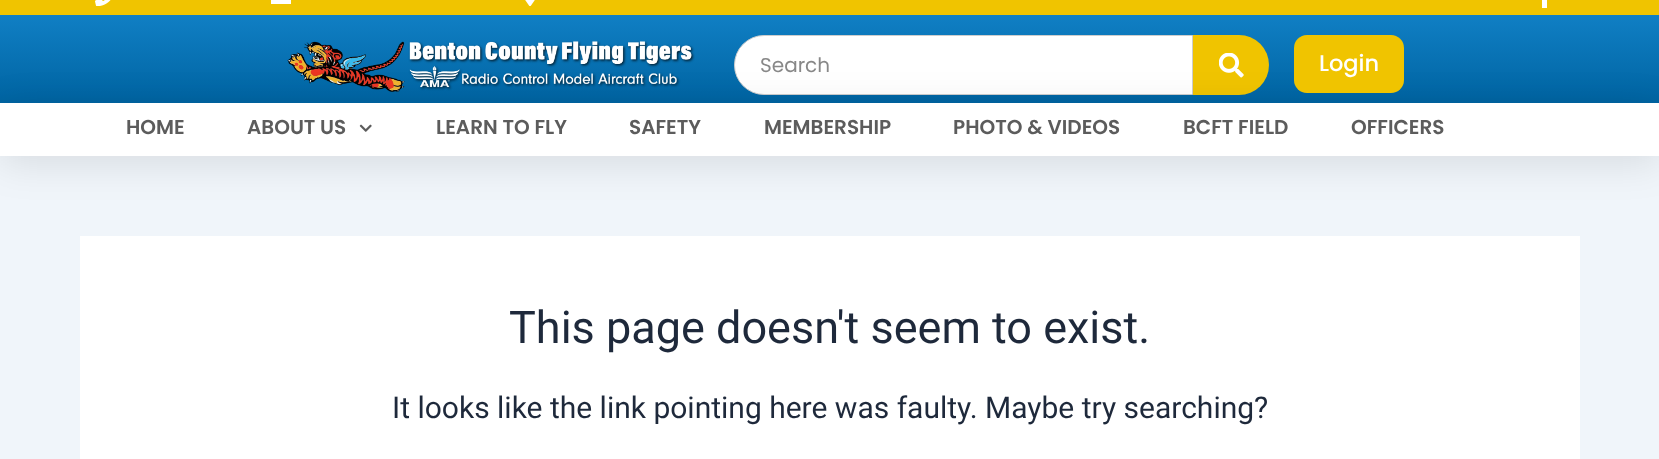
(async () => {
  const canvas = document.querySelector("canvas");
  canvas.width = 1659;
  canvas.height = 459;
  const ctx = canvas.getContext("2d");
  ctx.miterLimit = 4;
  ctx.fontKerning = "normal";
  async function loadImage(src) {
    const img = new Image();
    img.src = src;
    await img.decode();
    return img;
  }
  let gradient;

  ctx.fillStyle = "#f0f5fa";
  ctx.fillRect(0, 0, 1659, 459);
  ctx.fillStyle = "#f0c400";
  ctx.fillRect(0, 0, 1659, 15);
  ctx.drawImage(await loadImage("img/1.png"), 95, 0, 16, 6);
  ctx.fillStyle = "#ffffff";
  ctx.fillRect(271, 0, 20, 4);
  ctx.drawImage(await loadImage("img/2.png"), 525, 0, 10, 6);
  ctx.fillRect(1542, 0, 5, 8);
  gradient = ctx.createLinearGradient(830, 15, 830, 103);
  gradient.addColorStop(0, "#107fc4");
  gradient.addColorStop(1, "#0064a2");
  ctx.fillStyle = gradient;
  ctx.fillRect(0, 15, 1659, 88);
  ctx.drawImage(await loadImage("img/3.png"), 287, 41, 408, 51);
  ctx.fillStyle = "#ffffff";
  ctx.beginPath();
  ctx.roundRect(734.5, 35.5, 458, 59, [29.5, 0, 0, 29.5]);
  ctx.fill();
  ctx.strokeStyle = "#cdcdcd";
  ctx.stroke();
  ctx.fillStyle = "#f0c400";
  ctx.beginPath();
  ctx.roundRect(1193, 35, 76, 60, [0, 30, 30, 0]);
  ctx.fill();
  ctx.drawImage(await loadImage("img/4.png"), 1219, 53, 25, 25);
  ctx.fillStyle = "rgba(0, 0, 0, 0.1)";
  ctx.filter = "blur(19px)";
  ctx.beginPath();
  ctx.rect(0, 109, 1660, 54);
  ctx.fill();
  ctx.filter = "none";
  ctx.fillStyle = "#f0c400";
  ctx.beginPath();
  ctx.roundRect(1294, 35, 110, 58, 13);
  ctx.fill();
  ctx.fillStyle = "#ffffff";
  ctx.fillRect(0, 103, 1659, 53);
  ctx.drawImage(await loadImage("img/5.png"), 359, 124, 13, 8);
  ctx.fillRect(80, 236, 1500, 223);
  ctx.font = "20px Poppins";
  ctx.fillStyle = "#888888";
  ctx.fillText("Search", 760, 72);
  ctx.font = "500 22.5px Poppins";
  ctx.fillStyle = "#ffffff";
  ctx.fillText("Login", 1319, 71);
  ctx.font = "600 20px Poppins";
  ctx.fillStyle = "#5c5c5c";
  for (const [text, x, y] of [
    ["HOME", 126, 134],
    ["ABOUT US", 247, 134],
    ["LEARN TO FLY", 436, 134],
    ["SAFETY", 629, 134],
    ["MEMBERSHIP", 764, 134],
    ["PHOTO & VIDEOS", 953, 134],
    ["BCFT FIELD", 1183, 134],
    ["OFFICERS", 1351, 134],
  ]) {
    ctx.fillText(text, x, y);
  }
  ctx.font = "45px Roboto";
  ctx.fillStyle = "#1e293b";
  ctx.fillText("This page doesn't seem to exist.", 509, 343);
  ctx.font = "30px Roboto";
  ctx.fillText("It looks like the link pointing here was faulty. Maybe try searching?", 392, 418);
})();
